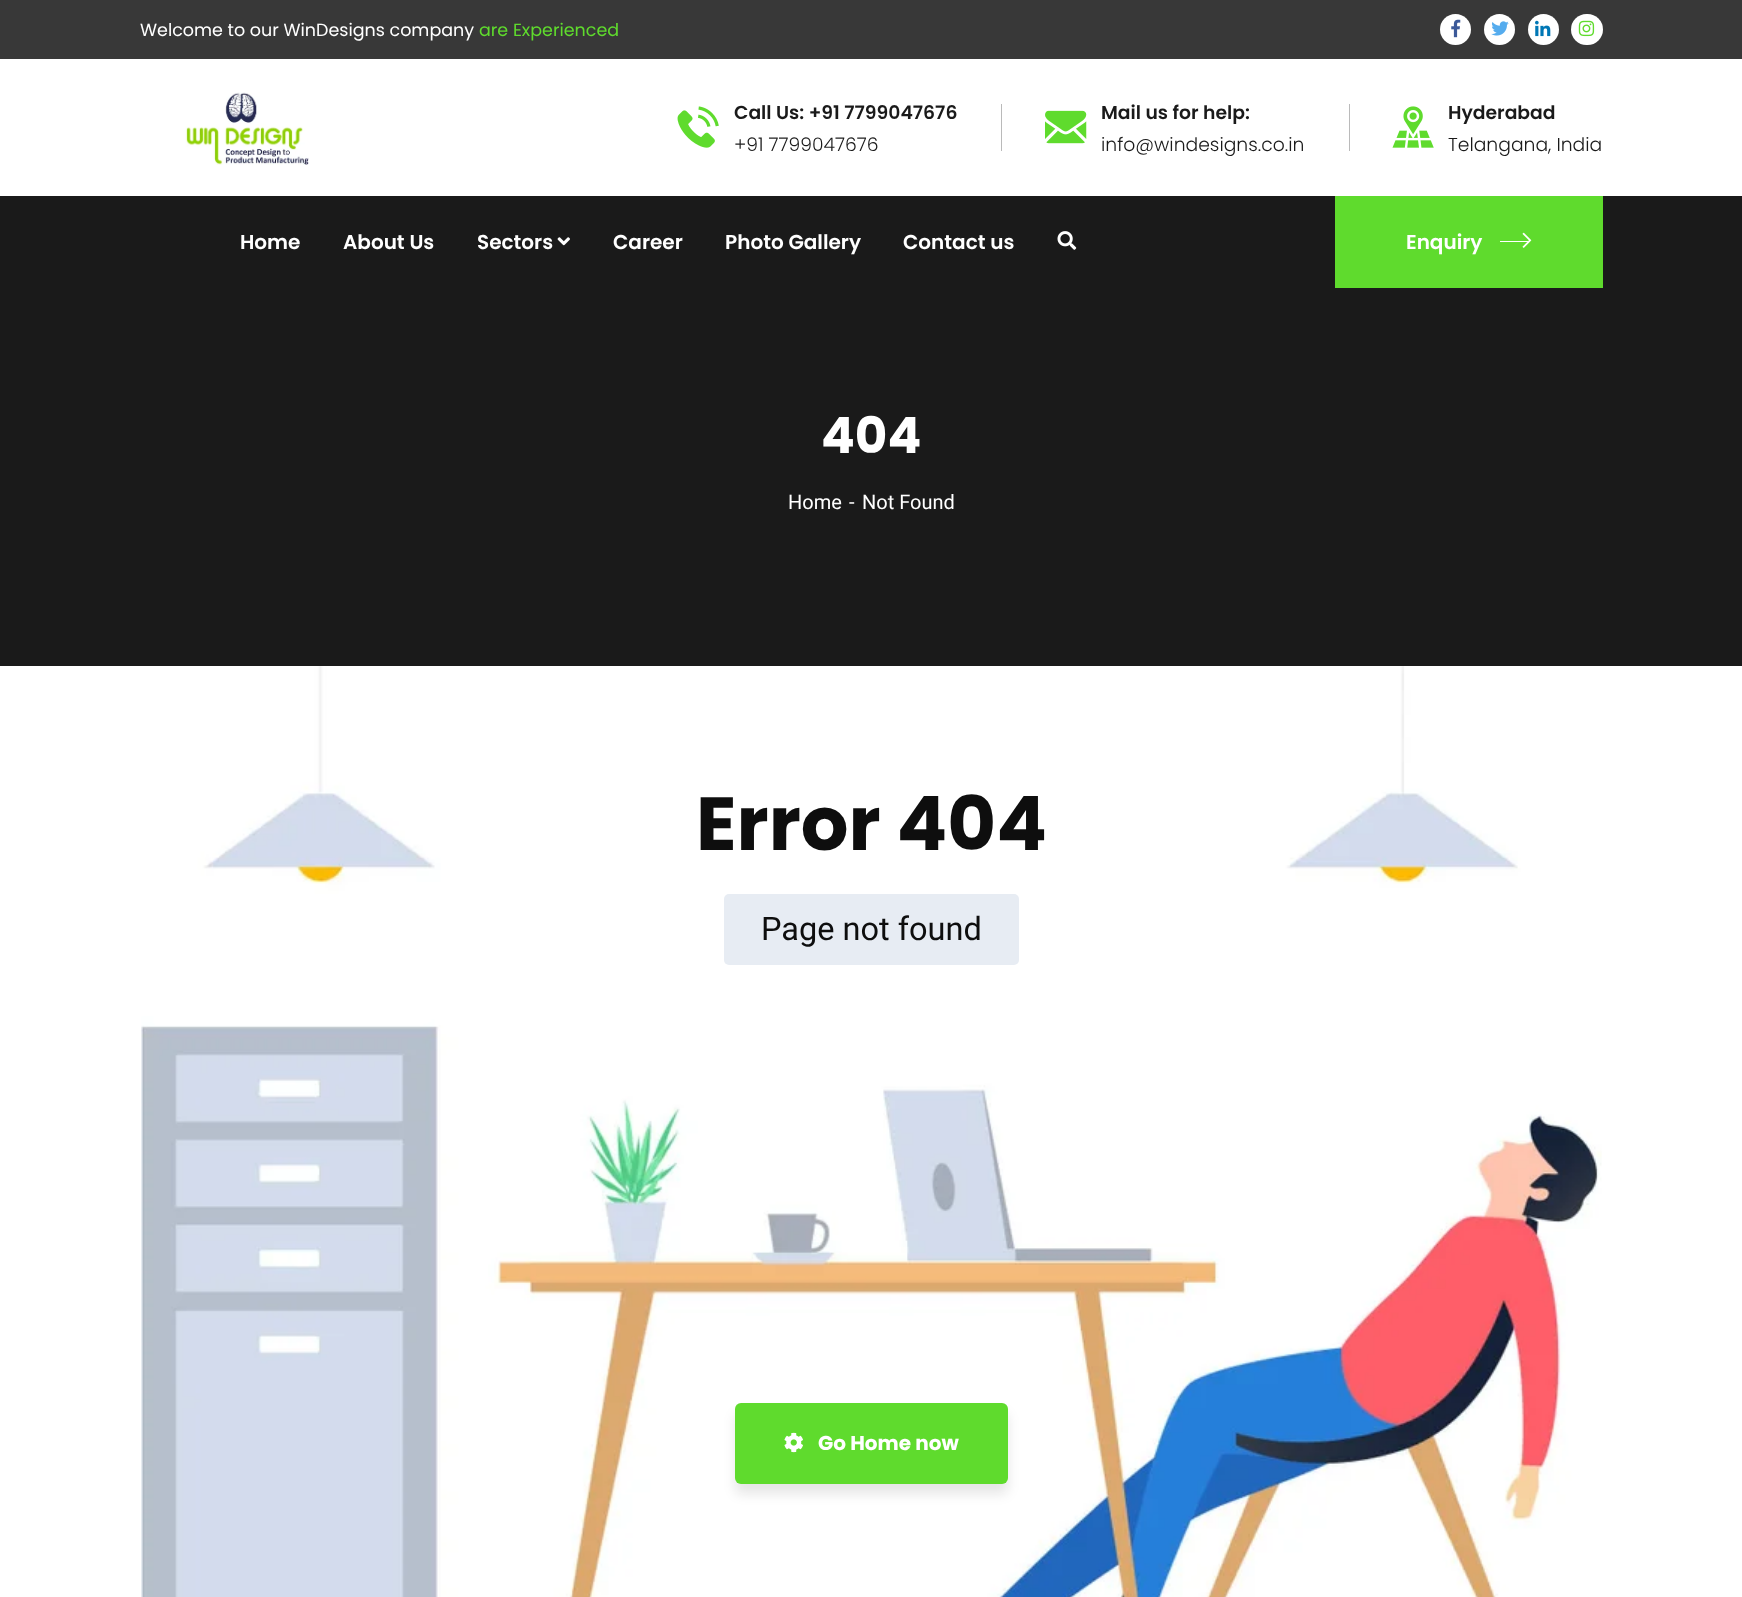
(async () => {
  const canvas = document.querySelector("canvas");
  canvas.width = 1742;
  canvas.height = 1597;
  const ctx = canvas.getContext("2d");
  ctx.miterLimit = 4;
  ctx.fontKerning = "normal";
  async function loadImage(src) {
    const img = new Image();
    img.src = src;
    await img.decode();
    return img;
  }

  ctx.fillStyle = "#ffffff";
  ctx.fillRect(0, 0, 1742, 1597);
  ctx.fillStyle = "#383838";
  ctx.fillRect(0, 0, 1742, 59);
  ctx.fillStyle = "#ffffff";
  ctx.beginPath();
  ctx.arc(1455.5, 29.5, 15.5, 0, Math.PI * 2);
  ctx.fill();
  ctx.drawImage(await loadImage("img/1.png"), 1451, 19, 10, 19);
  ctx.beginPath();
  ctx.arc(1499.5, 29.5, 15.5, 0, Math.PI * 2);
  ctx.fill();
  ctx.drawImage(await loadImage("img/2.png"), 1491, 21, 18, 15);
  ctx.beginPath();
  ctx.arc(1543.5, 29.5, 15.5, 0, Math.PI * 2);
  ctx.fill();
  ctx.drawImage(await loadImage("img/3.png"), 1535, 20, 16, 17);
  ctx.beginPath();
  ctx.roundRect(1571, 14, 32, 31, 15.5);
  ctx.fill();
  ctx.drawImage(await loadImage("img/4.png"), 1578, 20, 17, 17);
  ctx.drawImage(await loadImage("img/5.png"), 185, 92, 124, 73);
  ctx.drawImage(await loadImage("img/6.png"), 677, 106, 42, 42);
  ctx.fillStyle = "#bababa";
  ctx.fillRect(1001, 104, 1, 47);
  ctx.drawImage(await loadImage("img/7.png"), 1045, 110, 42, 34);
  ctx.fillRect(1349, 104, 1, 47);
  ctx.drawImage(await loadImage("img/8.png"), 1392, 106, 42, 42);
  ctx.fillStyle = "#1a1a1a";
  ctx.fillRect(0, 196, 1742, 470);
  ctx.drawImage(await loadImage("img/9.png"), 557, 237, 13, 9);
  ctx.drawImage(await loadImage("img/10.png"), 1057, 231, 20, 19);
  ctx.fillStyle = "#5fdb2d";
  ctx.fillRect(1335, 196, 268, 92);
  ctx.drawImage(await loadImage("img/11.png"), 1522, 232, 10, 16);
  ctx.fillStyle = "#ffffff";
  ctx.fillRect(1500, 241, 29, 1);
  ctx.drawImage(await loadImage("img/12.png"), 141, 666, 1461, 931);
  ctx.fillStyle = "#e7ecf3";
  ctx.beginPath();
  ctx.roundRect(724, 894, 295, 71, 5);
  ctx.fill();
  ctx.fillStyle = "rgba(12, 12, 12, 0.1)";
  ctx.filter = "blur(6px)";
  ctx.beginPath();
  ctx.roundRect(735, 1413, 273, 81, 6);
  ctx.fill();
  ctx.filter = "none";
  ctx.fillStyle = "#5fdb2d";
  ctx.beginPath();
  ctx.roundRect(735, 1403, 273, 81, 6);
  ctx.fill();
  ctx.drawImage(await loadImage("img/13.png"), 784, 1432, 19, 21);
  ctx.font = "17.5px Poppins";
  ctx.fillStyle = "#ffffff";
  ctx.fillText("Welcome to our WinDesigns company", 140, 36);
  ctx.fillStyle = "#5fdb2d";
  ctx.fillText("are Experienced", 479, 36);
  ctx.font = "600 18.75px Poppins";
  ctx.fillStyle = "#1a1a1a";
  ctx.fillText("Call Us: +91 7799047676", 734, 119);
  ctx.font = "300 18.75px Poppins";
  ctx.fillText("+91 7799047676", 734, 151);
  ctx.font = "600 18.75px Poppins";
  ctx.fillText("Mail us for help:", 1101, 119);
  ctx.font = "300 18.75px Poppins";
  ctx.fillText("info@windesigns.co.in", 1101, 151);
  ctx.font = "600 18.75px Poppins";
  ctx.fillText("Hyderabad", 1448, 119);
  ctx.font = "300 18.75px Poppins";
  ctx.fillText("Telangana, India", 1448, 151);
  ctx.font = "600 20px Poppins";
  ctx.fillStyle = "#ffffff";
  for (const [text, x, y] of [
    ["Home", 240, 249],
    ["About Us", 343, 249],
    ["Sectors", 477, 249],
    ["Career", 613, 249],
    ["Photo Gallery", 725, 249],
    ["Contact us", 903, 249],
    ["Enquiry", 1406, 249],
  ]) {
    ctx.fillText(text, x, y);
  }
  ctx.font = "bold 50px Poppins";
  ctx.fillText("404", 821, 453);
  ctx.font = "20px Roboto";
  for (const [text, x, y] of [
    ["Home", 788, 509],
    ["-", 849, 509],
    ["Not Found", 862, 509],
  ]) {
    ctx.fillText(text, x, y);
  }
  ctx.font = "bold 75px Poppins";
  ctx.fillStyle = "#0e0e0e";
  ctx.fillText("Error 404", 696, 850);
  ctx.font = "32.5px Roboto";
  ctx.fillText("Page not found", 761, 940);
  ctx.font = "bold 20px Poppins";
  ctx.fillStyle = "#ffffff";
  ctx.fillText("Go Home now", 818, 1450);
})();
